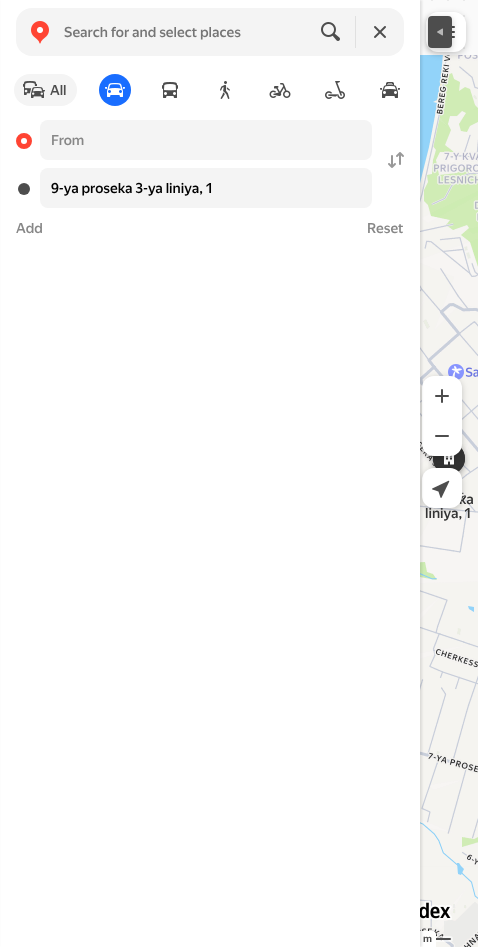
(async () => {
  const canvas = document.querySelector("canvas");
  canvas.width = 478;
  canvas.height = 947;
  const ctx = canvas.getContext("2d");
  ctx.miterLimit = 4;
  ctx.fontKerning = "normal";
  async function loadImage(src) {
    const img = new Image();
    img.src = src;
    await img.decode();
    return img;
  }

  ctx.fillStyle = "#ffffff";
  ctx.fillRect(0, 0, 478, 947);
  ctx.drawImage(await loadImage("img/1.png"), 420, 0, 58, 55);
  ctx.drawImage(await loadImage("img/19.png"), 420, 55, 58, 256);
  ctx.fillStyle = "rgba(0, 0, 0, 0.2)";
  ctx.filter = "blur(3px)";
  ctx.beginPath();
  ctx.roundRect(426, 14, 40, 40, 12);
  ctx.fill();
  ctx.filter = "none";
  ctx.fillStyle = "#ffffff";
  ctx.beginPath();
  ctx.roundRect(426, 12, 40, 40, 12);
  ctx.fill();
  ctx.drawImage(await loadImage("img/5.png"), 452, 26, 3, 12);
  ctx.drawImage(await loadImage("img/20.png"), 420, 311, 58, 256);
  ctx.drawImage(await loadImage("img/23.png"), 428, 444, 42, 34);
  ctx.drawImage(await loadImage("img/24.png"), 444, 455, 10, 10);
  ctx.fillStyle = "rgba(0, 0, 0, 0.2)";
  ctx.filter = "blur(3px)";
  ctx.beginPath();
  ctx.roundRect(422, 378, 40, 80, 12);
  ctx.fill();
  ctx.filter = "none";
  ctx.fillStyle = "#ffffff";
  ctx.beginPath();
  ctx.roundRect(422, 376, 40, 40, [12, 12, 0, 0]);
  ctx.fill();
  ctx.drawImage(await loadImage("img/6.png"), 435, 389, 14, 14);
  ctx.beginPath();
  ctx.roundRect(422, 416, 40, 40, [0, 0, 12, 12]);
  ctx.fill();
  ctx.drawImage(await loadImage("img/7.png"), 435, 435, 14, 2);
  ctx.fillStyle = "rgba(0, 0, 0, 0.2)";
  ctx.filter = "blur(3px)";
  ctx.beginPath();
  ctx.roundRect(422, 470, 40, 40, 12);
  ctx.fill();
  ctx.filter = "none";
  ctx.filter = "blur(3px)";
  ctx.beginPath();
  ctx.roundRect(428, 18, 24, 32, 4);
  ctx.fill();
  ctx.filter = "none";
  ctx.fillStyle = "#4d4d4d";
  ctx.beginPath();
  ctx.roundRect(428, 16, 24, 32, 4);
  ctx.fill();
  ctx.drawImage(await loadImage("img/9.png"), 437, 28, 6, 8);
  ctx.drawImage(await loadImage("img/22.png"), 420, 823, 58, 124);
  ctx.drawImage(await loadImage("img/18.png"), 420, 900, 32, 20);
  ctx.fillStyle = "rgba(255, 255, 255, 0.6)";
  ctx.beginPath();
  ctx.roundRect(383, 936, 70, 6, 3);
  ctx.fill();
  ctx.fillStyle = "#4d4d4d";
  ctx.beginPath();
  ctx.roundRect(385, 938, 66, 2, 1);
  ctx.fill();
  ctx.fillStyle = "#ffffff";
  ctx.beginPath();
  ctx.roundRect(400, 931, 36, 16, [4, 4, 0, 0]);
  ctx.fill();
  ctx.drawImage(await loadImage("img/21.png"), 420, 567, 58, 256);
  ctx.font = "bold 10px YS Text";
  ctx.fillStyle = "#4d4d4d";
  ctx.fillText("m", 423, 942);
  ctx.font = "500 14px YS Text";
  ctx.fillStyle = "#333333";
  ctx.fillText("ka", 459, 504);
  ctx.fillText("liniya,", 425, 518);
  ctx.fillStyle = "#ffffff";
  ctx.beginPath();
  ctx.roundRect(422, 468, 40, 40, 12);
  ctx.fill();
  ctx.fillStyle = "rgba(0, 0, 0, 0.1)";
  ctx.filter = "blur(1px)";
  ctx.beginPath();
  ctx.rect(2, 0, 420, 947);
  ctx.fill();
  ctx.filter = "none";
  ctx.fillStyle = "#ffffff";
  ctx.fillRect(1, 0, 419, 947);
  ctx.fillStyle = "#f4f4f4";
  ctx.beginPath();
  ctx.roundRect(16, 8, 388, 48, 16);
  ctx.fill();
  ctx.drawImage(await loadImage("img/4.png"), 374, 26, 12, 12);
  ctx.drawImage(await loadImage("img/3.png"), 321, 22, 19, 19);
  ctx.fillStyle = "#e0e0e0";
  ctx.fillRect(355, 16, 1, 32);
  ctx.fillStyle = "#757575";
  ctx.fillText("Search for and select places", 64, 37);
  ctx.drawImage(await loadImage("img/2.png"), 31, 21, 18, 23);
  ctx.drawImage(await loadImage("img/17.png"), 388, 152, 16, 16);
  ctx.fillStyle = "#f4f4f4";
  ctx.beginPath();
  ctx.roundRect(40, 168, 332, 40, 8);
  ctx.fill();
  ctx.fillStyle = "#000000";
  ctx.fillText("9-ya proseka 3-ya liniya, 1", 51, 193);
  ctx.fillStyle = "#4d4d4d";
  ctx.beginPath();
  ctx.arc(24, 189, 6, 0, Math.PI * 2);
  ctx.fill();
  ctx.fillStyle = "#f4f4f4";
  ctx.beginPath();
  ctx.roundRect(40, 120, 332, 40, 8);
  ctx.fill();
  ctx.fillStyle = "#878787";
  ctx.fillText("From", 51, 145);
  ctx.fillStyle = "#ff4433";
  ctx.beginPath();
  ctx.arc(24, 141, 7, 0, Math.PI * 2);
  ctx.fill();
  ctx.strokeStyle = "#ff4433";
  ctx.lineWidth = 2;
  ctx.stroke();
  ctx.fillStyle = "#ffffff";
  ctx.beginPath();
  ctx.arc(24, 141, 3, 0, Math.PI * 2);
  ctx.fill();
  ctx.drawImage(await loadImage("img/16.png"), 380, 82, 20, 16);
  ctx.drawImage(await loadImage("img/15.png"), 325, 81, 20, 18);
  ctx.drawImage(await loadImage("img/14.png"), 269, 83, 22, 15);
  ctx.drawImage(await loadImage("img/13.png"), 220, 81, 10, 18);
  ctx.drawImage(await loadImage("img/12.png"), 162, 82, 16, 16);
  ctx.fillStyle = "#196dff";
  ctx.beginPath();
  ctx.arc(115, 90, 16, 0, Math.PI * 2);
  ctx.fill();
  ctx.drawImage(await loadImage("img/11.png"), 105, 83, 20, 14);
  ctx.fillStyle = "#f4f4f4";
  ctx.beginPath();
  ctx.roundRect(14, 74, 63, 32, 16);
  ctx.fill();
  ctx.drawImage(await loadImage("img/10.png"), 23, 81, 22, 17);
  ctx.fillStyle = "#878787";
  ctx.fillText("Reset", 367, 233);
  ctx.fillText("Add", 16, 233);
  ctx.fillStyle = "#4d4d4d";
  ctx.fillText("All", 50, 95);
  ctx.drawImage(await loadImage("img/8.png"), 432, 480, 18, 18);
  ctx.fillStyle = "#333333";
  ctx.fillText("1", 464, 518);
})();
